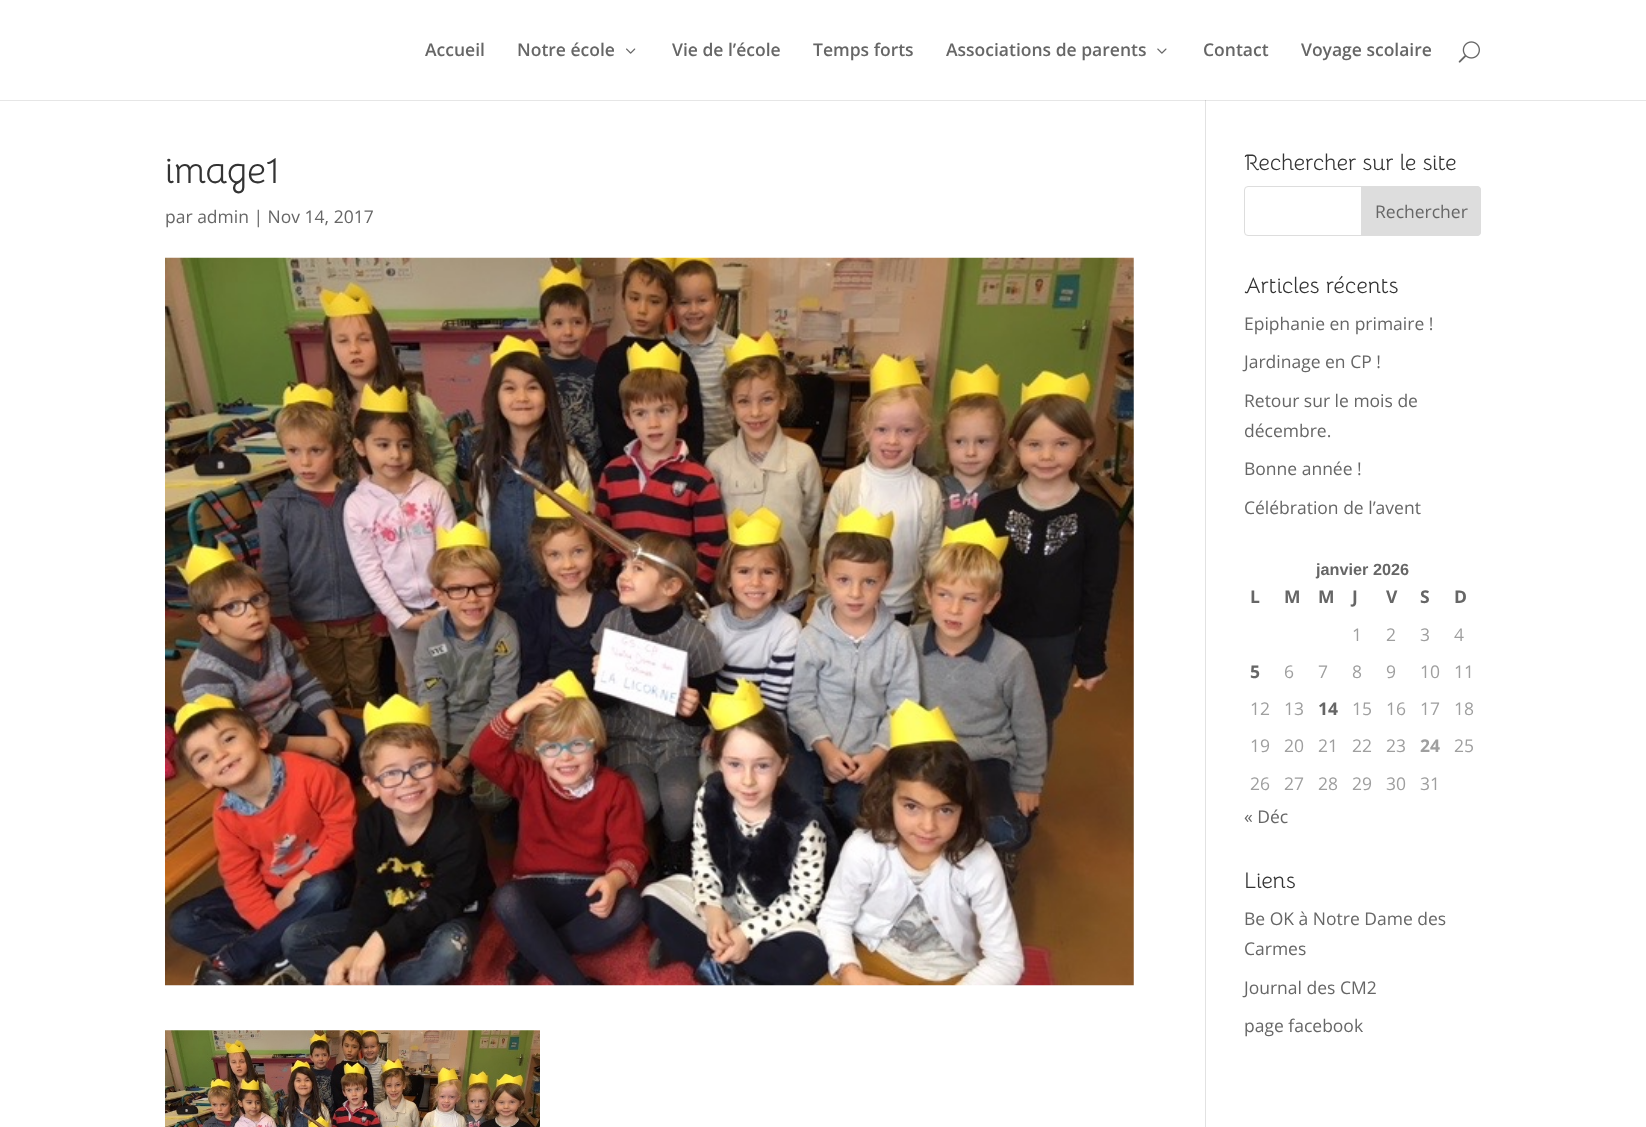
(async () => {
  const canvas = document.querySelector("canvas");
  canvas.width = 1646;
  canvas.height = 1127;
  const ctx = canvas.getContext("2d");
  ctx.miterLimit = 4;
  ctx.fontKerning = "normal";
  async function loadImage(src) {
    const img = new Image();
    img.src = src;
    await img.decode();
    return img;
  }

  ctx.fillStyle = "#ffffff";
  ctx.fillRect(0, 0, 1646, 1127);
  ctx.fillStyle = "#e6e6e6";
  ctx.fillRect(0, 100, 1646, 1);
  ctx.drawImage(await loadImage("img/1.png"), 626, 48, 10, 6);
  ctx.drawImage(await loadImage("img/2.png"), 1157, 48, 10, 6);
  ctx.drawImage(await loadImage("img/3.png"), 1458, 41, 22, 22);
  ctx.fillStyle = "#e2e2e2";
  ctx.fillRect(1205, 101, 1, 1026);
  ctx.fillStyle = "#cbcbcb";
  ctx.fillRect(1205, 100, 1, 1);
  ctx.drawImage(await loadImage("img/4.png"), 165, 257, 969, 729);
  ctx.drawImage(await loadImage("img/5.png"), 165, 1030, 375, 97);
  ctx.beginPath();
  ctx.roundRect(1244.5, 186.5, 236, 49, 3.5);
  ctx.strokeStyle = "#dddddd";
  ctx.stroke();
  ctx.fillStyle = "#dddddd";
  ctx.beginPath();
  ctx.roundRect(1361.5, 186.5, 119, 49, [0, 3.5, 3.5, 0]);
  ctx.fill();
  ctx.stroke();
  ctx.font = "600 17.5px Open Sans";
  ctx.fillStyle = "#666666";
  for (const [text, x, y] of [
    ["Accueil", 425, 56],
    ["Notre école", 517, 56],
    ["Vie de l’école", 672, 56],
    ["Temps forts", 813, 56],
    ["Associations de parents", 946, 56],
    ["Contact", 1203, 56],
    ["Voyage scolaire", 1301, 56],
  ]) {
    ctx.fillText(text, x, y);
  }
  ctx.font = "37.5px Bellota";
  ctx.fillStyle = "#333333";
  ctx.fillText("image1", 165, 183);
  ctx.font = "17.5px Open Sans";
  ctx.fillStyle = "#666666";
  ctx.fillText("par admin | Nov 14, 2017", 165, 223);
  ctx.font = "22.5px Bellota";
  ctx.fillStyle = "#333333";
  ctx.fillText("Rechercher sur le site", 1244, 170);
  ctx.font = "17.5px Open Sans";
  ctx.fillStyle = "#666666";
  ctx.fillText("Rechercher", 1375, 218);
  ctx.font = "22.5px Bellota";
  ctx.fillStyle = "#333333";
  ctx.fillText("Articles récents", 1244, 293);
  ctx.font = "17.5px Open Sans";
  ctx.fillStyle = "#666666";
  for (const [text, x, y] of [
    ["Epiphanie en primaire !", 1244, 330],
    ["Jardinage en CP !", 1244, 368],
    ["Retour sur le mois de", 1244, 407],
    ["décembre.", 1244, 437],
    ["Bonne année !", 1244, 475],
    ["Célébration de l’avent", 1244, 514],
  ]) {
    ctx.fillText(text, x, y);
  }
  ctx.font = "bold 16.25px Liberation Sans";
  ctx.fillText("janvier 2026", 1316, 575);
  ctx.font = "bold 17.5px Open Sans";
  for (const [text, x, y] of [
    ["L", 1250, 603],
    ["M", 1284, 603],
    ["M", 1318, 603],
    ["J", 1352, 603],
    ["V", 1386, 603],
    ["S", 1420, 603],
    ["D", 1454, 603],
  ]) {
    ctx.fillText(text, x, y);
  }
  ctx.font = "17.5px Open Sans";
  ctx.fillStyle = "#9f9f9f";
  for (const [text, x, y] of [
    ["1", 1352, 641],
    ["2", 1386, 641],
    ["3", 1420, 641],
    ["4", 1454, 641],
  ]) {
    ctx.fillText(text, x, y);
  }
  ctx.font = "bold 17.5px Open Sans";
  ctx.fillStyle = "#666666";
  ctx.fillText("5", 1250, 678);
  ctx.font = "17.5px Open Sans";
  ctx.fillStyle = "#9f9f9f";
  for (const [text, x, y] of [
    ["6", 1284, 678],
    ["7", 1318, 678],
    ["8", 1352, 678],
    ["9", 1386, 678],
    ["10", 1420, 678],
    ["11", 1454, 678],
    ["12", 1250, 715],
    ["13", 1284, 715],
  ]) {
    ctx.fillText(text, x, y);
  }
  ctx.font = "bold 17.5px Open Sans";
  ctx.fillStyle = "#666666";
  ctx.fillText("14", 1318, 715);
  ctx.font = "17.5px Open Sans";
  ctx.fillStyle = "#9f9f9f";
  for (const [text, x, y] of [
    ["15", 1352, 715],
    ["16", 1386, 715],
    ["17", 1420, 715],
    ["18", 1454, 715],
    ["19", 1250, 752],
    ["20", 1284, 752],
    ["21", 1318, 752],
    ["22", 1352, 752],
    ["23", 1386, 752],
  ]) {
    ctx.fillText(text, x, y);
  }
  ctx.font = "bold 17.5px Open Sans";
  ctx.fillText("24", 1420, 752);
  ctx.font = "17.5px Open Sans";
  for (const [text, x, y] of [
    ["25", 1454, 752],
    ["26", 1250, 790],
    ["27", 1284, 790],
    ["28", 1318, 790],
    ["29", 1352, 790],
    ["30", 1386, 790],
    ["31", 1420, 790],
  ]) {
    ctx.fillText(text, x, y);
  }
  ctx.fillStyle = "#666666";
  ctx.fillText("« Déc", 1244, 823);
  ctx.font = "22.5px Bellota";
  ctx.fillStyle = "#333333";
  ctx.fillText("Liens", 1244, 888);
  ctx.font = "17.5px Open Sans";
  ctx.fillStyle = "#666666";
  for (const [text, x, y] of [
    ["Be OK à Notre Dame des", 1244, 925],
    ["Carmes", 1244, 955],
    ["Journal des CM2", 1244, 994],
    ["page facebook", 1244, 1032],
  ]) {
    ctx.fillText(text, x, y);
  }
})();
